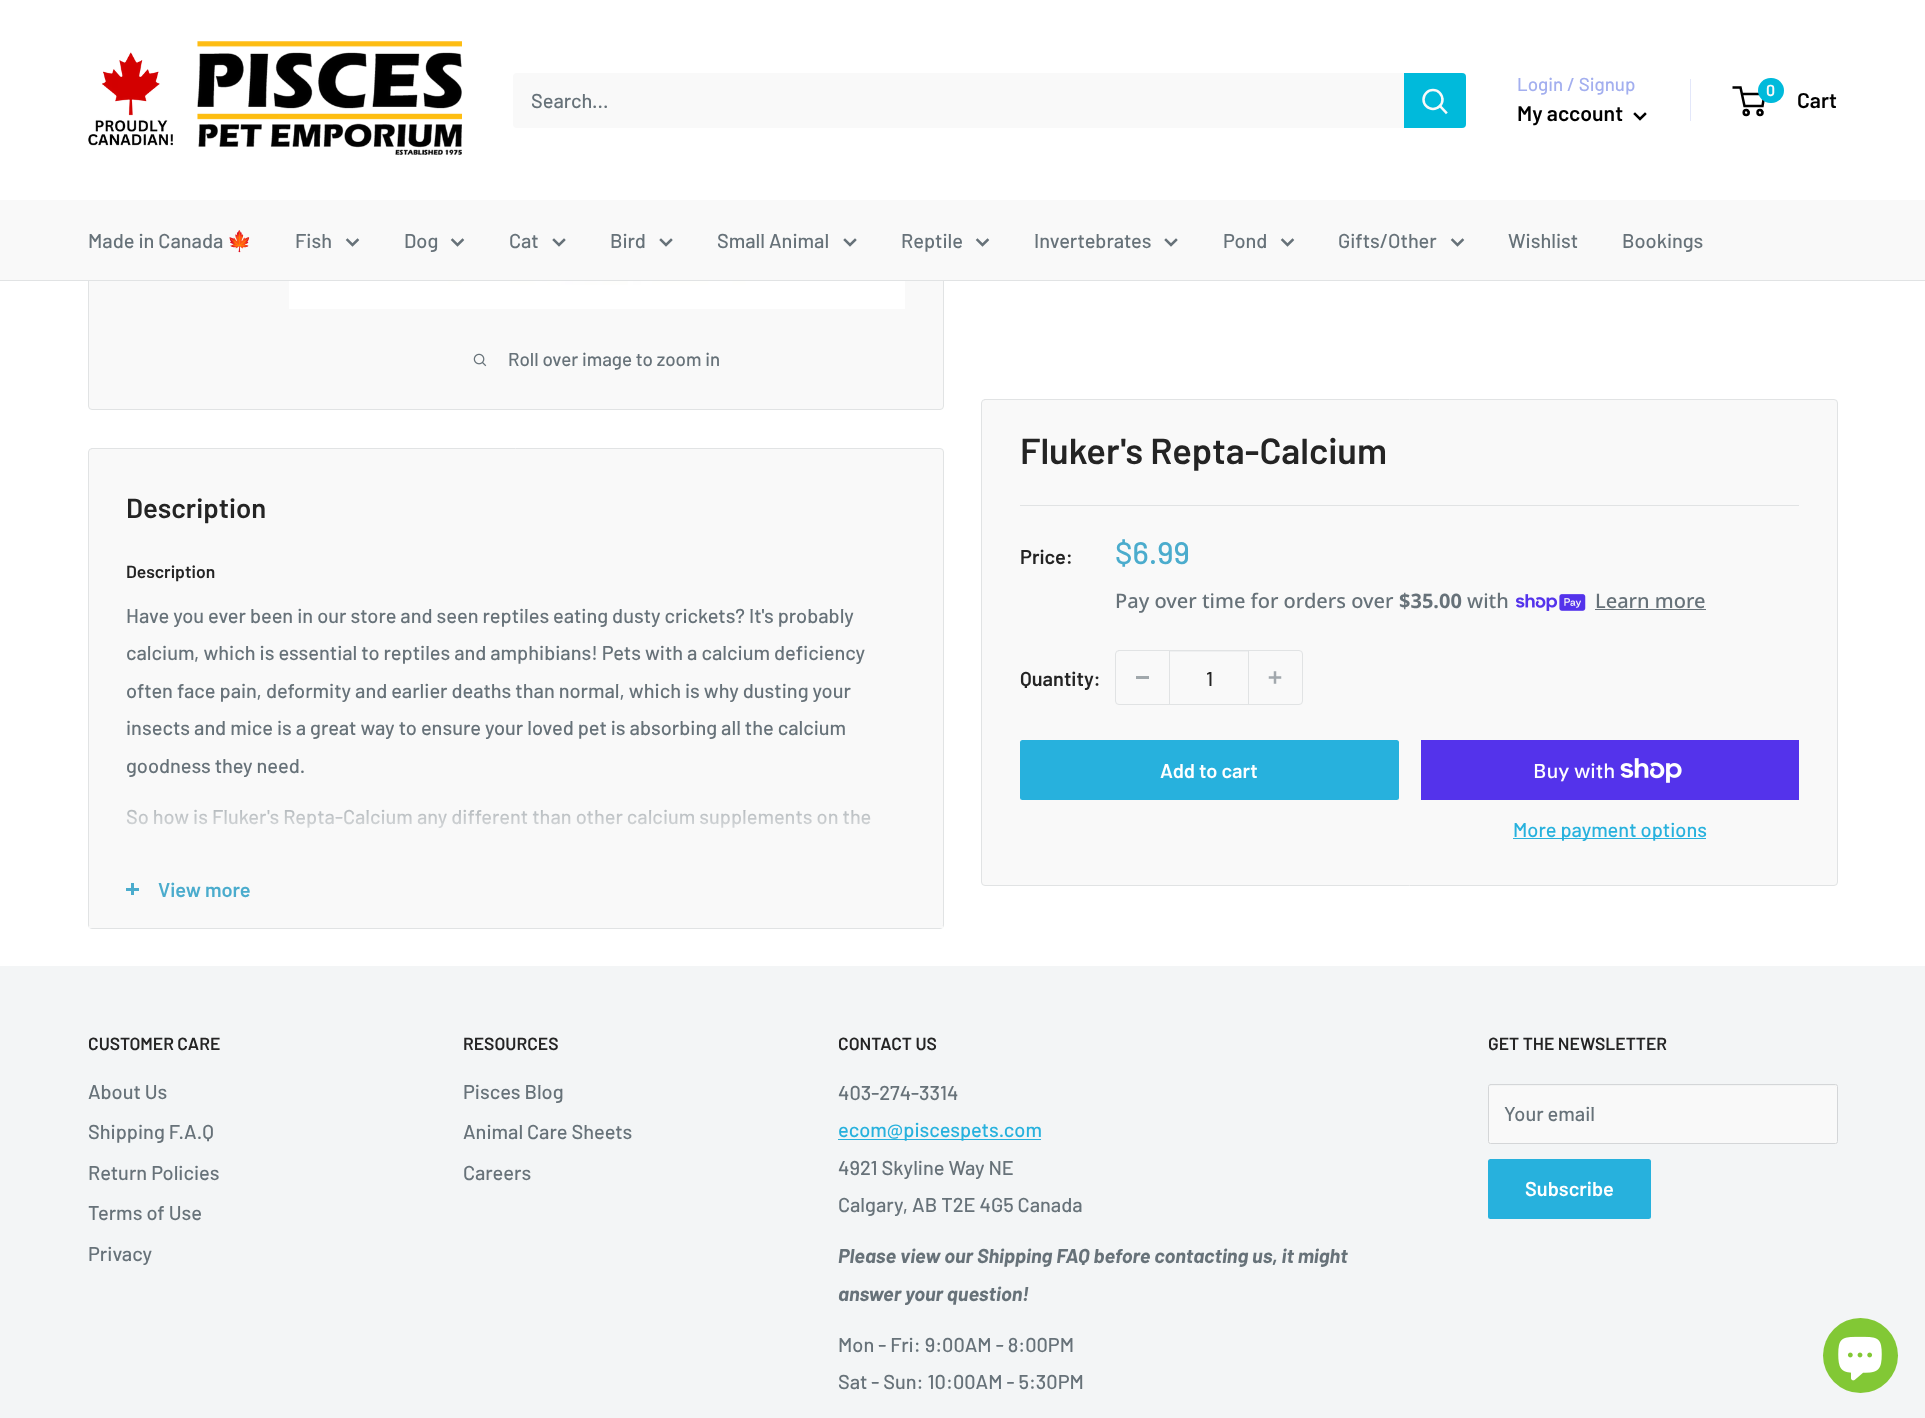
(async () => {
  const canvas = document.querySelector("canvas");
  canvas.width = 1925;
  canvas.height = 1418;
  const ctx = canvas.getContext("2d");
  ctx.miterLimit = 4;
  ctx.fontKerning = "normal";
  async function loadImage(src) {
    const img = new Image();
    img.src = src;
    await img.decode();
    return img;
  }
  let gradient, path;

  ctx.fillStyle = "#ffffff";
  ctx.fillRect(0, 0, 1925, 1418);
  ctx.fillStyle = "#f9f9f9";
  ctx.beginPath();
  ctx.roundRect(88.5, -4.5, 855, 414, 3.5);
  ctx.fill();
  ctx.strokeStyle = "#e1e3e4";
  ctx.stroke();
  ctx.fillStyle = "#ffffff";
  ctx.fillRect(88, 0, 856, 200);
  ctx.drawImage(await loadImage("img/1.png"), 88, 41, 374, 114);
  ctx.fillStyle = "#f9f9f9";
  ctx.beginPath();
  ctx.roundRect(513, 73, 953, 55, 4);
  ctx.fill();
  ctx.fillStyle = "#00badb";
  ctx.beginPath();
  ctx.roundRect(1404, 73, 62, 55, [0, 4, 4, 0]);
  ctx.fill();
  path = new Path2D("M1446 112.5L1440 106");
  ctx.strokeStyle = "#f9f9f9";
  ctx.lineWidth = 2.5;
  ctx.lineCap = "square";
  ctx.stroke(path);
  ctx.beginPath();
  ctx.arc(1433, 99.5, 9.5, 0, Math.PI * 2);
  ctx.stroke();
  ctx.fillStyle = "#e3e7fa";
  ctx.fillRect(1690, 79, 1, 42);
  path = new Path2D("M1645 114L1640 119L1635 114");
  ctx.strokeStyle = "#000000";
  ctx.stroke(path);
  ctx.beginPath();
  ctx.arc(1746.2, 112.5, 2.5, 0, Math.PI * 2);
  ctx.stroke();
  ctx.beginPath();
  ctx.arc(1760, 112.5, 2.5, 0, Math.PI * 2);
  ctx.stroke();
  path = new Path2D("M1741.5 94H1764.5L1762.5 106H1744.5L1740.5 87.5H1732.5");
  ctx.lineCap = "butt";
  ctx.stroke(path);
  ctx.fillStyle = "#00badb";
  ctx.beginPath();
  ctx.roundRect(1758, 78, 26, 25, 12.5);
  ctx.fill();
  ctx.fillStyle = "#f9f9f9";
  ctx.fillRect(0, 200, 1925, 80);
  ctx.fillStyle = "#e1e3e4";
  ctx.fillRect(0, 280, 1925, 1);
  path = new Path2D("M357.5 240L352.5 245L347.5 240");
  ctx.strokeStyle = "#677279";
  ctx.lineCap = "square";
  ctx.stroke(path);
  path = new Path2D("M462.5 240L457.5 245L452.5 240");
  ctx.stroke(path);
  path = new Path2D("M564 240L559 245L554 240");
  ctx.stroke(path);
  path = new Path2D("M671 240L666 245L661 240");
  ctx.stroke(path);
  path = new Path2D("M855 240L850 245L845 240");
  ctx.stroke(path);
  path = new Path2D("M987.5 240L982.5 245L977.5 240");
  ctx.stroke(path);
  path = new Path2D("M1176 240L1171 245L1166 240");
  ctx.stroke(path);
  path = new Path2D("M1292.5 240L1287.5 245L1282.5 240");
  ctx.stroke(path);
  path = new Path2D("M1462.5 240L1457.5 245L1452.5 240");
  ctx.stroke(path);
  ctx.drawImage(await loadImage("img/2.png"), 289, 281, 616, 28);
  ctx.drawImage(await loadImage("img/3.png"), 473, 353, 14, 14);
  ctx.fillStyle = "#f9f9f9";
  ctx.beginPath();
  ctx.roundRect(88.5, 448.5, 855, 480, 3.5);
  ctx.fill();
  ctx.strokeStyle = "#e1e3e4";
  ctx.lineWidth = 1;
  ctx.stroke();
  for (const [x, y, w, h, color] of [
    [89, 926, 854, 2, "#f9f9f9"],
    [131, 883, 3, 12, "#4baccd"],
    [126, 888, 13, 3, "#4baccd"],
  ]) {
    ctx.fillStyle = color;
    ctx.fillRect(x, y, w, h);
  }
  ctx.fillStyle = "#f9f9f9";
  ctx.beginPath();
  ctx.roundRect(981.5, 399.5, 856, 486, 3.5);
  ctx.fill();
  ctx.stroke();
  ctx.fillStyle = "#e1e3e4";
  ctx.fillRect(1020, 505, 779, 1);
  ctx.drawImage(await loadImage("img/4.png"), 1516, 594, 70, 17);
  ctx.fillStyle = "#677279";
  ctx.fillRect(1595, 609, 111, 1);
  ctx.beginPath();
  ctx.roundRect(1115.5, 650.5, 187, 54, 3.5);
  ctx.stroke();
  for (const [x, y, w, h, color] of [
    [1136, 676, 13, 3, "#a1a8ac"],
    [1170, 651, 78, 1, "#eff0f1"],
    [1248, 651, 1, 53, "#e1e3e4"],
    [1169, 651, 1, 53, "#e1e3e4"],
  ]) {
    ctx.fillStyle = color;
    ctx.fillRect(x, y, w, h);
  }
  ctx.drawImage(await loadImage("img/5.png"), 1268, 671, 14, 13);
  ctx.fillStyle = "#27b1dd";
  ctx.beginPath();
  ctx.roundRect(1020, 740, 379, 60, 2.5);
  ctx.fill();
  ctx.fillStyle = "#5433eb";
  ctx.fillRect(1421, 740, 378, 60);
  ctx.drawImage(await loadImage("img/6.png"), 1620, 758, 62, 25);
  for (const [x, y, w, h, color] of [
    [1513, 838, 193, 1, "#27b1dd"],
    [0, 966, 1925, 452, "#f3f5f6"],
    [838, 1139, 203, 1, "#27b1dd"],
  ]) {
    ctx.fillStyle = color;
    ctx.fillRect(x, y, w, h);
  }
  ctx.fillStyle = "#f9f9f9";
  ctx.beginPath();
  ctx.roundRect(1488, 1084, 350, 60, 2.5);
  ctx.fill();
  ctx.fillStyle = "#f3f4f4";
  path = new Path2D("M1490 1086H1835L1836 1087V1088V1085H1490C1489 1085 1489 1087 1489 1088C1489 1087 1489 1086 1490 1086Z");
  ctx.fill(path);
  ctx.beginPath();
  ctx.roundRect(1488.5, 1084.5, 349, 59, 2);
  ctx.strokeStyle = "#d4d6d8";
  ctx.stroke();
  ctx.fillStyle = "#27b1dd";
  ctx.beginPath();
  ctx.roundRect(1488, 1159, 163, 60, 2.5);
  ctx.fill();
  ctx.fillStyle = "#82c835";
  ctx.beginPath();
  ctx.arc(1860.5, 1355.5, 37.5, 0, Math.PI * 2);
  ctx.fill();
  ctx.drawImage(await loadImage("img/7.png"), 1838, 1336, 44, 45);
  ctx.font = "500 20px Barlow";
  ctx.fillStyle = "#677279";
  ctx.fillText("Search...", 531, 108);
  ctx.font = "500 18.75px Barlow";
  ctx.fillStyle = "#a3afef";
  ctx.fillText("Login / Signup", 1517, 91);
  ctx.font = "600 21.25px Barlow";
  ctx.fillStyle = "#000000";
  ctx.fillText("My account", 1517, 121);
  ctx.font = "600 16px Barlow";
  ctx.fillStyle = "#f9f9f9";
  ctx.fillText("0", 1766, 96);
  ctx.font = "600 21.25px Barlow";
  ctx.fillStyle = "#000000";
  ctx.fillText("Cart", 1797, 108);
  ctx.font = "500 20px Barlow";
  ctx.fillStyle = "#677279";
  ctx.fillText("Made in Canada", 88, 248);
  ctx.font = "20px Noto Color Emoji";
  ctx.fillText("🍁", 227, 248);
  ctx.font = "500 20px Barlow";
  for (const [text, x, y] of [
    ["Fish", 295, 248],
    ["Dog", 404, 248],
    ["Cat", 509, 248],
    ["Bird", 610, 248],
    ["Small Animal", 717, 248],
    ["Reptile", 901, 248],
    ["Invertebrates", 1034, 248],
    ["Pond", 1223, 248],
    ["Gifts/Other", 1338, 248],
    ["Wishlist", 1508, 248],
    ["Bookings", 1622, 248],
  ]) {
    ctx.fillText(text, x, y);
  }
  ctx.font = "500 18.75px Barlow";
  ctx.fillText("Roll over image to zoom in", 508, 366);
  ctx.font = "600 27.5px Barlow";
  ctx.fillStyle = "#242424";
  ctx.fillText("Description", 126, 518);
  ctx.font = "600 17.5px Barlow";
  ctx.fillText("Description", 126, 578);
  ctx.font = "500 20px Barlow";
  ctx.fillStyle = "#677279";
  for (const [text, x, y] of [
    ["Have you ever been in our store and seen reptiles eating dusty crickets? It's probably", 126, 623],
    ["calcium, which is essential to reptiles and amphibians! Pets with a calcium deficiency", 126, 660],
    ["often face pain, deformity and earlier deaths than normal, which is why dusting your", 126, 698],
    ["insects and mice is a great way to ensure your loved pet is absorbing all the calcium", 126, 735],
    ["goodness they need.", 126, 773],
    ["So how is Fluker's Repta-Calcium any different than other calcium supplements on the", 126, 824],
  ]) {
    ctx.fillText(text, x, y);
  }
  gradient = ctx.createLinearGradient(516, 788, 516, 850);
  gradient.addColorStop(0, "rgba(249, 249, 249, 0)");
  gradient.addColorStop(0.15, "rgba(249, 249, 249, 0.4)");
  gradient.addColorStop(1, "#f9f9f9");
  ctx.fillStyle = gradient;
  ctx.fillRect(127, 809, 744, 19);
  ctx.font = "600 20px Barlow";
  ctx.fillStyle = "#4baccd";
  ctx.fillText("View more", 158, 897);
  ctx.font = "600 36.25px Barlow";
  ctx.fillStyle = "#242424";
  ctx.fillText("Fluker's Repta-Calcium", 1020, 464);
  ctx.font = "600 20px Barlow";
  ctx.fillText("Price:", 1020, 564);
  ctx.font = "500 31px Barlow";
  ctx.fillStyle = "#4baccd";
  ctx.fillText("$6.99", 1115, 564);
  ctx.font = "500 20px Noto Sans";
  ctx.fillStyle = "#677279";
  ctx.fillText("Pay over time for orders over", 1115, 608);
  ctx.font = "bold 20px Noto Sans";
  ctx.fillText("$35.00", 1399, 608);
  ctx.font = "500 20px Noto Sans";
  ctx.fillText("with", 1467, 608);
  ctx.fillText("Learn more", 1595, 608);
  ctx.font = "600 20px Barlow";
  ctx.fillStyle = "#242424";
  ctx.fillText("Quantity:", 1020, 686);
  ctx.font = "500 20px Barlow";
  ctx.fillText("1", 1206, 686);
  ctx.font = "600 20px Barlow";
  ctx.fillStyle = "#ffffff";
  ctx.fillText("Add to cart", 1160, 778);
  ctx.font = "500 20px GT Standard";
  ctx.fillText("Buy with", 1533, 778);
  ctx.font = "500 20px Barlow";
  ctx.fillStyle = "#27b1dd";
  ctx.fillText("More payment options", 1513, 837);
  ctx.font = "600 17.5px Barlow";
  ctx.fillStyle = "#242424";
  ctx.fillText("CUSTOMER CARE", 88, 1050);
  ctx.font = "500 20px Barlow";
  ctx.fillStyle = "#677279";
  for (const [text, x, y] of [
    ["About Us", 88, 1099],
    ["Shipping F.A.Q", 88, 1139],
    ["Return Policies", 88, 1180],
    ["Terms of Use", 88, 1220],
    ["Privacy", 88, 1261],
  ]) {
    ctx.fillText(text, x, y);
  }
  ctx.font = "600 17.5px Barlow";
  ctx.fillStyle = "#242424";
  ctx.fillText("RESOURCES", 463, 1050);
  ctx.font = "500 20px Barlow";
  ctx.fillStyle = "#677279";
  for (const [text, x, y] of [
    ["Pisces Blog", 463, 1099],
    ["Animal Care Sheets", 463, 1139],
    ["Careers", 463, 1180],
  ]) {
    ctx.fillText(text, x, y);
  }
  ctx.font = "600 17.5px Barlow";
  ctx.fillStyle = "#242424";
  ctx.fillText("CONTACT US", 838, 1050);
  ctx.font = "500 20px Barlow";
  ctx.fillStyle = "#677279";
  ctx.fillText("403-274-3314", 838, 1100);
  ctx.fillStyle = "#27b1dd";
  ctx.fillText("ecom@piscespets.com", 838, 1137);
  ctx.fillStyle = "#677279";
  ctx.fillText("4921 Skyline Way NE", 838, 1175);
  ctx.fillText("Calgary, AB T2E 4G5 Canada", 838, 1212);
  ctx.font = "italic bold 20px Barlow";
  ctx.fillText("Please view our Shipping FAQ before contacting us, it might", 838, 1263);
  ctx.fillText("answer your question!", 838, 1301);
  ctx.font = "500 20px Barlow";
  ctx.fillText("Mon - Fri: 9:00AM - 8:00PM", 838, 1352);
  ctx.fillText("Sat - Sun: 10:00AM - 5:30PM", 838, 1389);
  ctx.font = "600 17.5px Barlow";
  ctx.fillStyle = "#242424";
  ctx.fillText("GET THE NEWSLETTER", 1488, 1050);
  ctx.font = "500 20px Barlow";
  ctx.fillStyle = "#677279";
  ctx.fillText("Your email", 1504, 1121);
  ctx.font = "600 20px Barlow";
  ctx.fillStyle = "#ffffff";
  ctx.fillText("Subscribe", 1525, 1196);
})();
